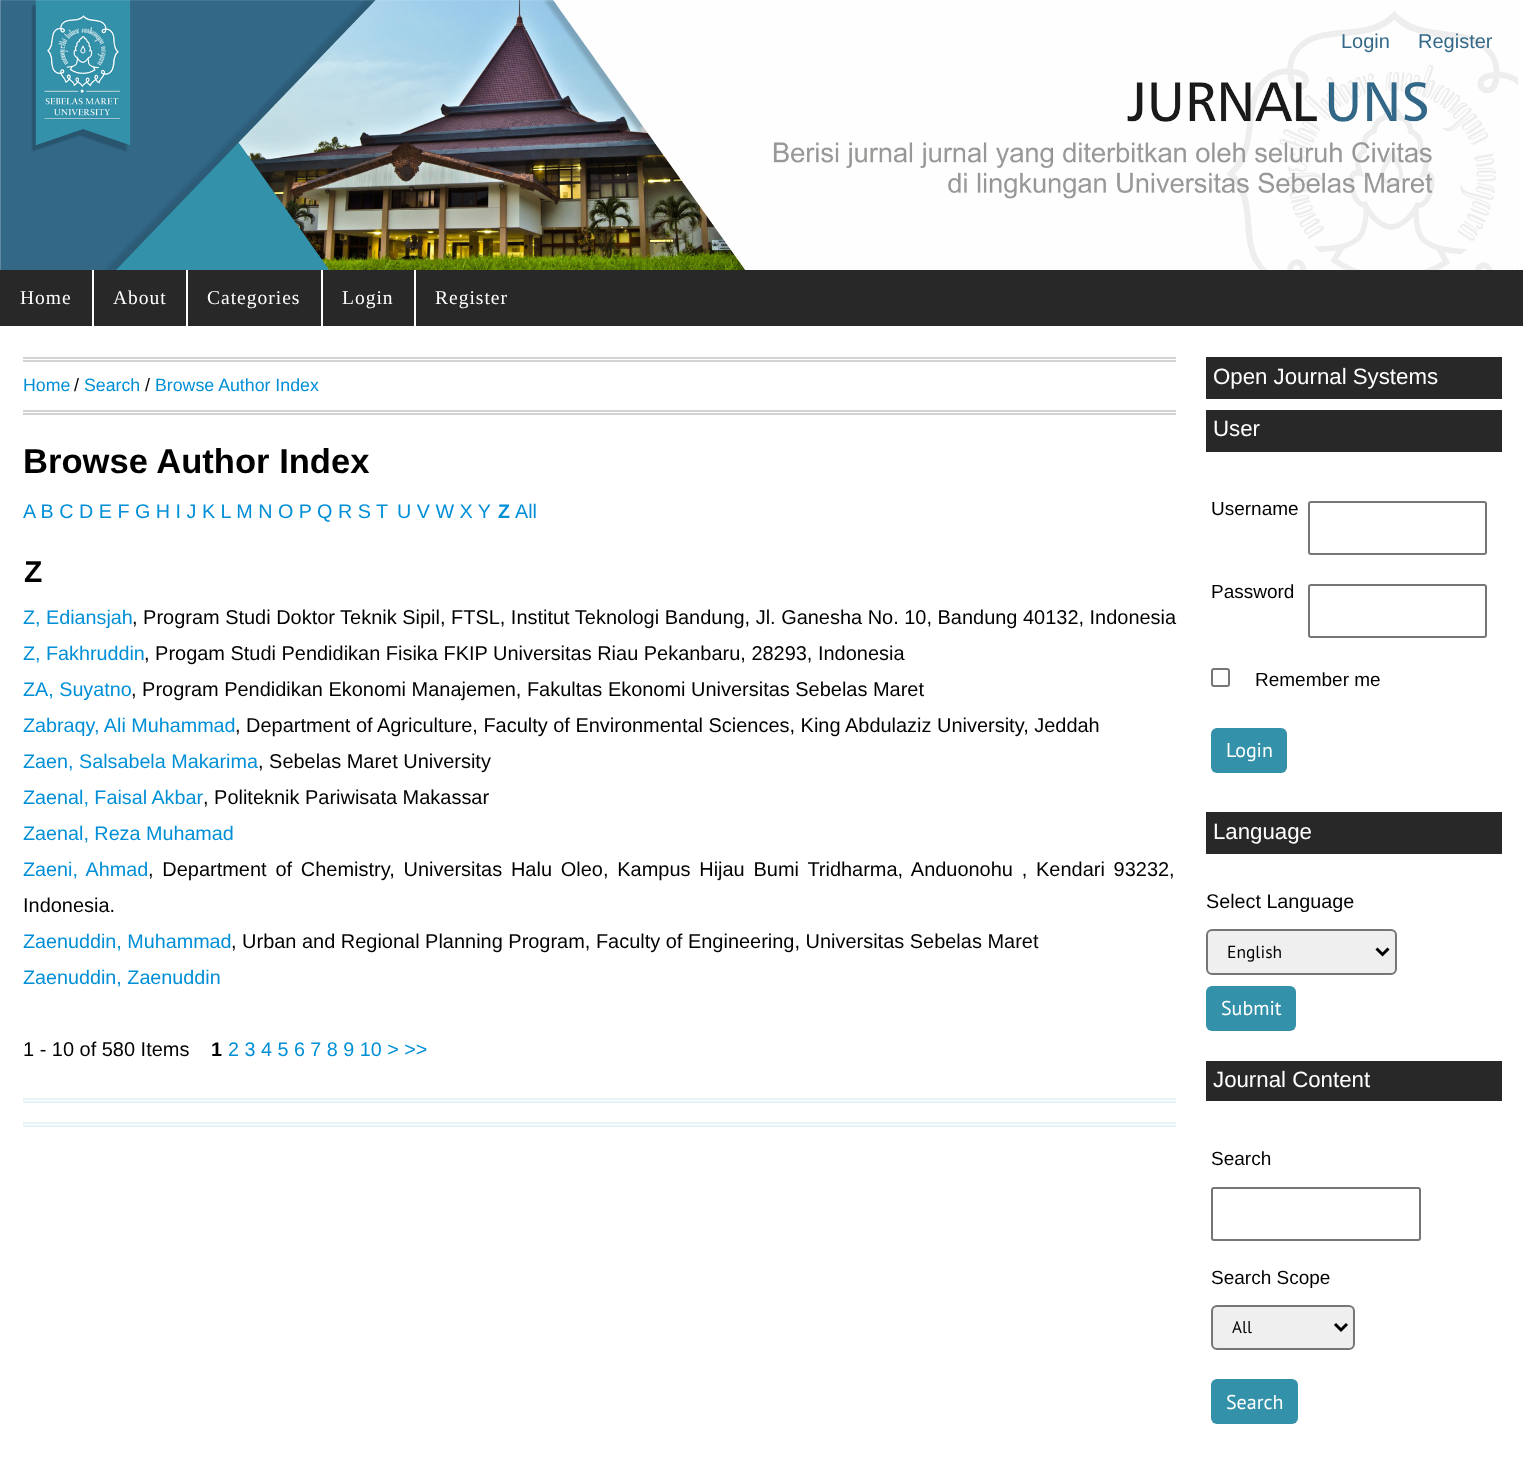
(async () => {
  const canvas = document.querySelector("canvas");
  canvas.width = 1523;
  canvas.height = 1475;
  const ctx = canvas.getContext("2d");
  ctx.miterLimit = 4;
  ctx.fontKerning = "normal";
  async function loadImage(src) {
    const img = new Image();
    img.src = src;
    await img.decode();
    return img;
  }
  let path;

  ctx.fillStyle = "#ffffff";
  ctx.fillRect(0, 0, 1523, 1475);
  ctx.drawImage(await loadImage("img/1.png"), 0, 0, 1519, 270);
  for (const [x, y, w, h, color] of [
    [0, 270, 1523, 56, "#282828"],
    [92, 270, 2, 56, "#ffffff"],
    [186, 270, 2, 56, "#ffffff"],
    [321, 270, 2, 56, "#ffffff"],
    [414, 270, 2, 56, "#ffffff"],
    [23, 357, 1153, 2, "#d1d3d5"],
    [23, 360, 1153, 2, "#d1d3d5"],
    [23, 410, 1153, 2, "#d1d3d5"],
    [23, 413, 1153, 2, "#d1d3d5"],
    [23, 1098, 1153, 2, "#e5f3fb"],
    [23, 1101, 1153, 2, "#e5f3fb"],
    [23, 1122, 1153, 2, "#e5f3fb"],
    [23, 1125, 1153, 2, "#e5f3fb"],
    [1206, 357, 296, 42, "#282828"],
    [1206, 410, 296, 42, "#282828"],
  ]) {
    ctx.fillStyle = color;
    ctx.fillRect(x, y, w, h);
  }
  ctx.beginPath();
  ctx.roundRect(1309, 502, 177, 52, 2);
  ctx.strokeStyle = "#767676";
  ctx.lineWidth = 2;
  ctx.stroke();
  ctx.beginPath();
  ctx.roundRect(1309, 585, 177, 52, 2);
  ctx.stroke();
  ctx.beginPath();
  ctx.roundRect(1212, 669, 17, 17, 2);
  ctx.stroke();
  ctx.fillStyle = "#3391aa";
  ctx.beginPath();
  ctx.roundRect(1211, 728, 76, 45, 6);
  ctx.fill();
  ctx.fillStyle = "#282828";
  ctx.fillRect(1206, 812, 296, 42);
  ctx.fillStyle = "#efefef";
  ctx.beginPath();
  ctx.roundRect(1207, 930, 189, 44, 5);
  ctx.fill();
  ctx.stroke();
  path = new Path2D("M1376.5 948.5L1382.5 954.5L1388.5 948.5");
  ctx.strokeStyle = "#000000";
  ctx.lineWidth = 3;
  ctx.stroke(path);
  ctx.fillStyle = "#3391aa";
  ctx.beginPath();
  ctx.roundRect(1206, 986, 90, 45, 6);
  ctx.fill();
  ctx.fillStyle = "#282828";
  ctx.fillRect(1206, 1061, 296, 40);
  ctx.beginPath();
  ctx.roundRect(1212, 1188, 208, 52, 2);
  ctx.strokeStyle = "#767676";
  ctx.lineWidth = 2;
  ctx.stroke();
  ctx.fillStyle = "#efefef";
  ctx.beginPath();
  ctx.roundRect(1212, 1306, 142, 43, 5);
  ctx.fill();
  ctx.stroke();
  path = new Path2D("M1335 1324L1341 1330L1347 1324");
  ctx.strokeStyle = "#000000";
  ctx.lineWidth = 3;
  ctx.stroke(path);
  ctx.fillStyle = "#3391aa";
  ctx.beginPath();
  ctx.roundRect(1211, 1379, 87, 45, 6);
  ctx.fill();
  ctx.font = "20px Liberation Sans";
  ctx.fillStyle = "#336888";
  ctx.fillText("Login", 1341, 48);
  ctx.fillText("Register", 1418, 48);
  ctx.letterSpacing = "1px";
  ctx.font = "19.5px Liberation Serif";
  ctx.fillStyle = "#ffffff";
  for (const [text, x, y] of [
    ["Home", 20, 304],
    ["About", 113, 304],
    ["Categories", 207, 304],
    ["Login", 342, 304],
    ["Register", 435, 304],
  ]) {
    ctx.fillText(text, x, y);
  }
  ctx.letterSpacing = "0px";
  ctx.font = "17.75px Liberation Sans";
  ctx.fillStyle = "#008fd7";
  ctx.fillText("Home", 23, 391);
  ctx.font = "18px Liberation Sans";
  ctx.fillStyle = "#000000";
  ctx.fillText("/", 74, 391);
  ctx.font = "17.75px Liberation Sans";
  ctx.fillStyle = "#008fd7";
  ctx.fillText("Search", 84, 391);
  ctx.font = "18px Liberation Sans";
  ctx.fillStyle = "#000000";
  ctx.fillText("/", 145, 391);
  ctx.font = "17.75px Liberation Sans";
  ctx.fillStyle = "#008fd7";
  ctx.fillText("Browse Author Index", 155, 391);
  ctx.font = "bold 34.6px Liberation Sans";
  ctx.fillStyle = "#000000";
  ctx.fillText("Browse Author Index", 23, 473);
  ctx.font = "19.75px Liberation Sans";
  ctx.fillStyle = "#008fd7";
  ctx.fillText("A B C D E F G H I J K L M N O P Q R S T", 23, 518);
  ctx.fillText("U V W X Y", 397, 518);
  ctx.font = "bold 19.5px Liberation Sans";
  ctx.fillText("Z", 498, 518);
  ctx.font = "19.75px Liberation Sans";
  ctx.fillText("All", 515, 518);
  ctx.font = "bold 30px Liberation Sans";
  ctx.fillStyle = "#000000";
  ctx.fillText("Z", 24, 582);
  ctx.font = "19.75px Liberation Sans";
  ctx.fillStyle = "#008fd7";
  ctx.fillText("Z, Ediansjah", 23, 624);
  ctx.font = "19.97px Liberation Sans";
  ctx.fillStyle = "#000000";
  ctx.fillText(", Program Studi Doktor Teknik Sipil, FTSL, Institut Teknologi Bandung, Jl. Ganesha No. 10, Bandung 40132, Indonesia", 132, 624);
  ctx.font = "19.75px Liberation Sans";
  ctx.fillStyle = "#008fd7";
  ctx.fillText("Z, Fakhruddin", 23, 660);
  ctx.font = "19.97px Liberation Sans";
  ctx.fillStyle = "#000000";
  ctx.fillText(", Progam Studi Pendidikan Fisika FKIP Universitas Riau Pekanbaru, 28293, Indonesia", 144, 660);
  ctx.font = "19.75px Liberation Sans";
  ctx.fillStyle = "#008fd7";
  ctx.fillText("ZA, Suyatno", 23, 696);
  ctx.font = "19.97px Liberation Sans";
  ctx.fillStyle = "#000000";
  ctx.fillText(", Program Pendidikan Ekonomi Manajemen, Fakultas Ekonomi Universitas Sebelas Maret", 131, 696);
  ctx.font = "19.75px Liberation Sans";
  ctx.fillStyle = "#008fd7";
  ctx.fillText("Zabraqy, Ali Muhammad", 23, 732);
  ctx.font = "19.97px Liberation Sans";
  ctx.fillStyle = "#000000";
  ctx.fillText(", Department of Agriculture, Faculty of Environmental Sciences, King Abdulaziz University, Jeddah", 235, 732);
  ctx.font = "19.75px Liberation Sans";
  ctx.fillStyle = "#008fd7";
  ctx.fillText("Zaen, Salsabela Makarima", 23, 768);
  ctx.font = "19.97px Liberation Sans";
  ctx.fillStyle = "#000000";
  ctx.fillText(", Sebelas Maret University", 258, 768);
  ctx.font = "19.75px Liberation Sans";
  ctx.fillStyle = "#008fd7";
  ctx.fillText("Zaenal, Faisal Akbar", 23, 804);
  ctx.font = "19.97px Liberation Sans";
  ctx.fillStyle = "#000000";
  ctx.fillText(", Politeknik Pariwisata Makassar", 203, 804);
  ctx.font = "19.75px Liberation Sans";
  ctx.fillStyle = "#008fd7";
  ctx.fillText("Zaenal, Reza Muhamad", 23, 840);
  ctx.wordSpacing = "3.25px";
  ctx.fillText("Zaeni, Ahmad", 23, 876);
  ctx.font = "19.97px Liberation Sans";
  ctx.fillStyle = "#000000";
  ctx.fillText(", Department of Chemistry, Universitas Halu Oleo, Kampus Hijau Bumi Tridharma, Anduonohu , Kendari 93232,", 148, 876);
  ctx.wordSpacing = "0px";
  ctx.fillText("Indonesia.", 23, 912);
  ctx.font = "19.75px Liberation Sans";
  ctx.fillStyle = "#008fd7";
  ctx.fillText("Zaenuddin, Muhammad", 23, 948);
  ctx.font = "19.97px Liberation Sans";
  ctx.fillStyle = "#000000";
  ctx.fillText(", Urban and Regional Planning Program, Faculty of Engineering, Universitas Sebelas Maret", 231, 948);
  ctx.font = "19.75px Liberation Sans";
  ctx.fillStyle = "#008fd7";
  ctx.fillText("Zaenuddin, Zaenuddin", 23, 984);
  ctx.font = "19.97px Liberation Sans";
  ctx.fillStyle = "#000000";
  ctx.fillText("1 - 10 of 580 Items", 23, 1056);
  ctx.font = "bold 19.75px Liberation Sans";
  ctx.fillText("1", 211, 1056);
  ctx.font = "19.75px Liberation Sans";
  ctx.fillStyle = "#008fd7";
  ctx.fillText("2 3 4 5 6 7 8 9 10 > >>", 228, 1056);
  ctx.font = "22.25px Liberation Sans";
  ctx.fillStyle = "#ffffff";
  ctx.fillText("Open Journal Systems", 1213, 384);
  ctx.fillText("User", 1213, 436);
  ctx.font = "19px Liberation Sans";
  ctx.fillStyle = "#000000";
  for (const [text, x, y] of [
    ["Username", 1211, 515],
    ["Password", 1211, 598],
    ["Remember me", 1255, 686],
  ]) {
    ctx.fillText(text, x, y);
  }
  ctx.font = "20px PT Sans";
  ctx.fillStyle = "#ffffff";
  ctx.fillText("Login", 1226, 757);
  ctx.font = "22.25px Liberation Sans";
  ctx.fillText("Language", 1213, 839);
  ctx.font = "19.75px Liberation Sans";
  ctx.fillStyle = "#000000";
  ctx.fillText("Select Language", 1206, 908);
  ctx.font = "17.5px PT Sans";
  ctx.fillText("English", 1227, 958);
  ctx.font = "20px PT Sans";
  ctx.fillStyle = "#ffffff";
  ctx.fillText("Submit", 1221, 1015);
  ctx.font = "22.25px Liberation Sans";
  ctx.fillText("Journal Content", 1213, 1087);
  ctx.font = "19px Liberation Sans";
  ctx.fillStyle = "#000000";
  ctx.fillText("Search", 1211, 1165);
  ctx.fillText("Search Scope", 1211, 1284);
  ctx.font = "17px PT Sans";
  ctx.fillText("All", 1232, 1333);
  ctx.font = "20px PT Sans";
  ctx.fillStyle = "#ffffff";
  ctx.fillText("Search", 1226, 1409);
})();
